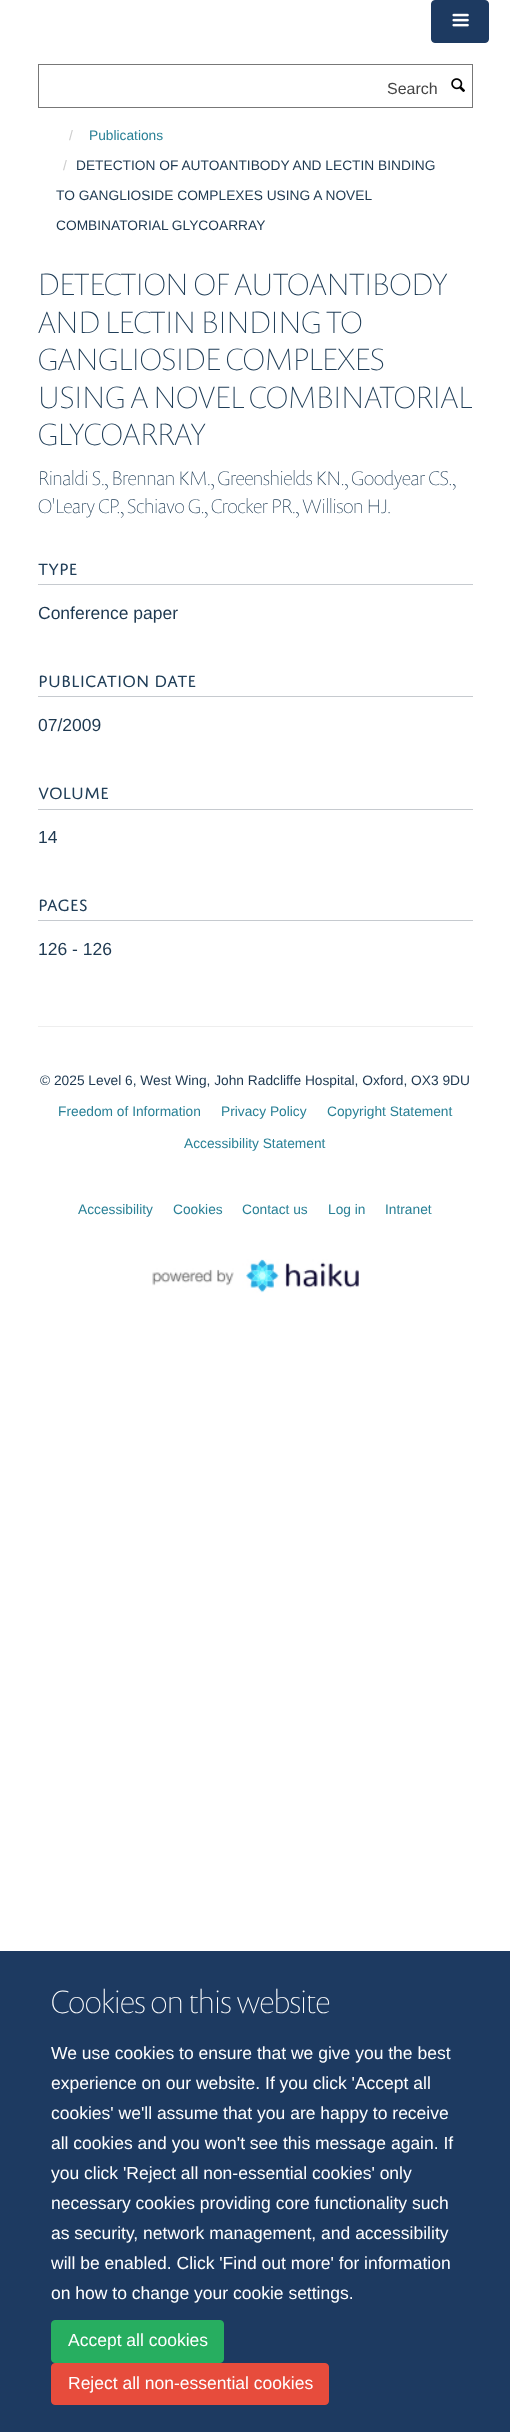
(async () => {
  const canvas = document.querySelector("canvas");
  canvas.width = 510;
  canvas.height = 2432;
  const ctx = canvas.getContext("2d");
  ctx.miterLimit = 4;
  ctx.fontKerning = "normal";
  async function loadImage(src) {
    const img = new Image();
    img.src = src;
    await img.decode();
    return img;
  }

  ctx.fillStyle = "#ffffff";
  ctx.fillRect(0, 0, 510, 2432);
  ctx.fillStyle = "#1d3a61";
  ctx.beginPath();
  ctx.roundRect(431.5, 0.5, 57, 42, 3.5);
  ctx.fill();
  ctx.strokeStyle = "#1d3a61";
  ctx.stroke();
  ctx.drawImage(await loadImage("img/1.png"), 452, 13, 17, 14);
  ctx.strokeStyle = "#777777";
  ctx.strokeRect(38.5, 64.5, 434, 43);
  ctx.drawImage(await loadImage("img/2.png"), 451, 78, 14, 14);
  for (const [x, y, w, h, color] of [
    [38, 584, 435, 1, "#c6cacf"],
    [38, 696, 435, 1, "#c6cacf"],
    [38, 809, 435, 1, "#c6cacf"],
    [38, 920, 435, 1, "#c6cacf"],
    [38, 1026, 435, 1, "#eeeeee"],
  ]) {
    ctx.fillStyle = color;
    ctx.fillRect(x, y, w, h);
  }
  ctx.drawImage(await loadImage("img/3.png"), 152, 1259, 207, 34);
  ctx.fillStyle = "#1d3a61";
  ctx.fillRect(0, 1951, 510, 481);
  ctx.fillStyle = "#27ae60";
  ctx.beginPath();
  ctx.roundRect(51.5, 2320.5, 172, 42, 3.5);
  ctx.fill();
  ctx.strokeStyle = "#27ae60";
  ctx.stroke();
  ctx.fillStyle = "#e74c3c";
  ctx.beginPath();
  ctx.roundRect(51.5, 2363.5, 277, 41, 3.5);
  ctx.fill();
  ctx.strokeStyle = "#e74c3c";
  ctx.stroke();
  ctx.font = "16px Liberation Sans";
  ctx.fillStyle = "#444444";
  ctx.fillText("Search", 387, 94);
  ctx.font = "13.75px Liberation Sans";
  ctx.fillStyle = "#cccccc";
  ctx.fillText("/", 69, 140);
  ctx.fillStyle = "#298096";
  ctx.fillText("Publications", 89, 140);
  ctx.fillStyle = "#cccccc";
  ctx.fillText("/", 63, 170);
  ctx.fillStyle = "#1d3850";
  for (const [text, x, y] of [
    ["DETECTION OF AUTOANTIBODY AND LECTIN BINDING", 76, 170],
    ["TO GANGLIOSIDE COMPLEXES USING A NOVEL", 56, 200],
    ["COMBINATORIAL GLYCOARRAY", 56, 230],
  ]) {
    ctx.fillText(text, x, y);
  }
  ctx.font = "100 31.25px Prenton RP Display";
  ctx.fillStyle = "#203e58";
  for (const [text, x, y] of [
    ["DETECTION OF AUTOANTIBODY", 38, 295],
    ["AND LECTIN BINDING TO", 38, 333],
    ["GANGLIOSIDE COMPLEXES", 38, 370],
    ["USING A NOVEL COMBINATORIAL", 38, 408],
    ["GLYCOARRAY", 38, 445],
  ]) {
    ctx.fillText(text, x, y);
  }
  ctx.font = "100 20px Prenton RP Display";
  ctx.fillText("Rinaldi S., Brennan KM., Greenshields KN., Goodyear CS.,", 38, 485);
  ctx.fillText("O'Leary CP., Schiavo G., Crocker PR., Willison HJ.", 38, 513);
  ctx.font = "17.5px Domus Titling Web";
  ctx.fillText("TYPE", 38, 575);
  ctx.font = "17.5px Liberation Sans";
  ctx.fillStyle = "#1d3850";
  ctx.fillText("Conference paper", 38, 619);
  ctx.font = "17.5px Domus Titling Web";
  ctx.fillStyle = "#203e58";
  ctx.fillText("PUBLICATION DATE", 38, 687);
  ctx.font = "17.5px Liberation Sans";
  ctx.fillStyle = "#1d3850";
  ctx.fillText("07/2009", 38, 731);
  ctx.font = "17.5px Domus Titling Web";
  ctx.fillStyle = "#203e58";
  ctx.fillText("VOLUME", 38, 799);
  ctx.font = "17.5px Liberation Sans";
  ctx.fillStyle = "#1d3850";
  ctx.fillText("14", 38, 843);
  ctx.font = "17.5px Domus Titling Web";
  ctx.fillStyle = "#203e58";
  ctx.fillText("PAGES", 38, 911);
  ctx.font = "17.5px Liberation Sans";
  ctx.fillStyle = "#1d3850";
  ctx.fillText("126 - 126", 38, 955);
  ctx.font = "13.75px Liberation Sans";
  ctx.fillText("© 2025 Level 6, West Wing, John Radcliffe Hospital, Oxford, OX3 9DU", 40, 1085);
  ctx.fillStyle = "#298096";
  for (const [text, x, y] of [
    ["Freedom of Information", 58, 1116],
    ["Privacy Policy", 221, 1116],
    ["Copyright Statement", 327, 1116],
    ["Accessibility Statement", 184, 1148],
    ["Accessibility", 78, 1214],
    ["Cookies", 173, 1214],
    ["Contact us", 242, 1214],
    ["Log in", 328, 1214],
    ["Intranet", 385, 1214],
  ]) {
    ctx.fillText(text, x, y);
  }
  ctx.font = "100 32.5px Prenton RP Display";
  ctx.fillStyle = "#ffffff";
  ctx.fillText("Cookies on this website", 51, 2013);
  ctx.font = "17.5px Liberation Sans";
  for (const [text, x, y] of [
    ["We use cookies to ensure that we give you the best", 51, 2059],
    ["experience on our website. If you click 'Accept all", 51, 2089],
    ["cookies' we'll assume that you are happy to receive", 51, 2119],
    ["all cookies and you won't see this message again. If", 51, 2149],
    ["you click 'Reject all non-essential cookies' only", 51, 2179],
    ["necessary cookies providing core functionality such", 51, 2209],
    ["as security, network management, and accessibility", 51, 2239],
    ["will be enabled. Click 'Find out more' for information", 51, 2269],
    ["on how to change your cookie settings.", 51, 2299],
    ["Accept all cookies", 68, 2346],
    ["Reject all non-essential cookies", 68, 2389],
  ]) {
    ctx.fillText(text, x, y);
  }
})();
